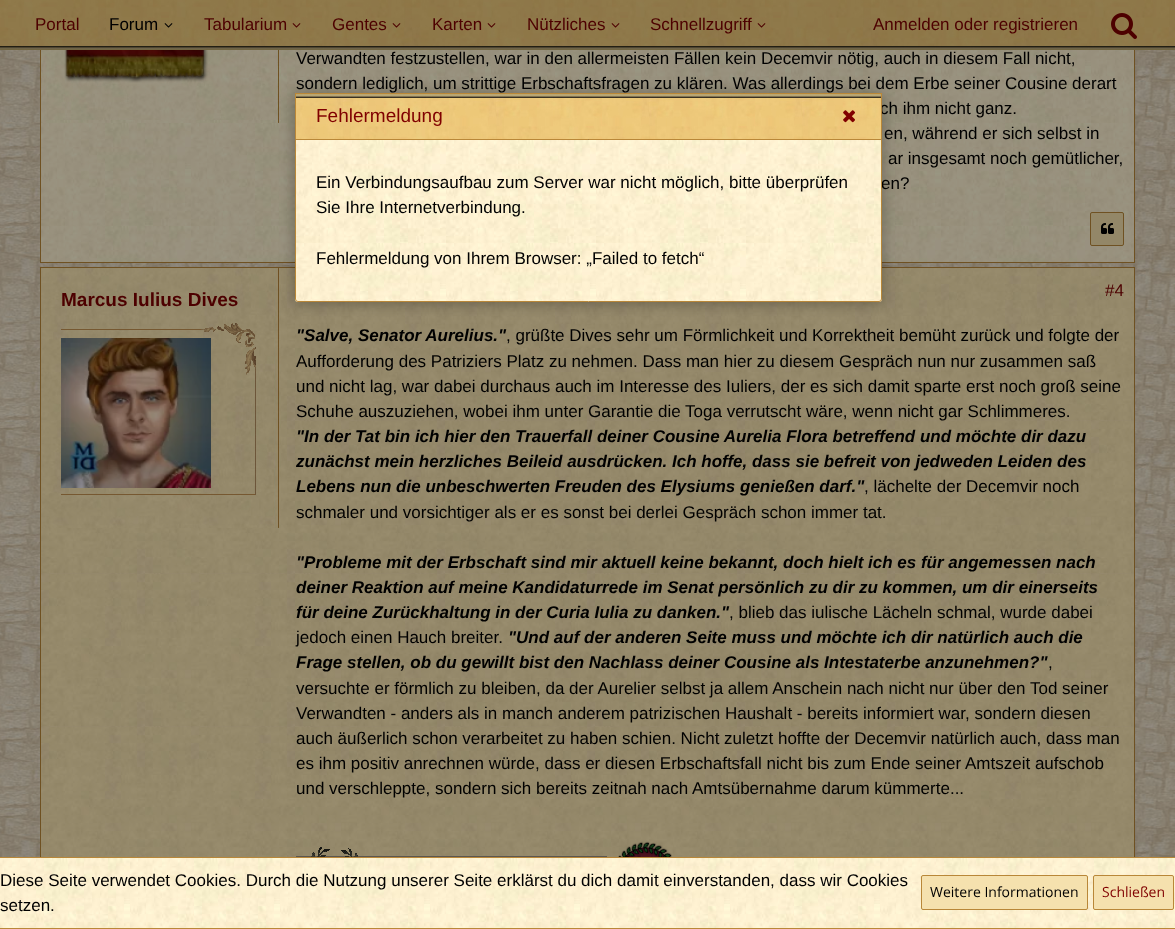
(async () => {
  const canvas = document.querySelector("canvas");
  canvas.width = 1175;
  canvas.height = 929;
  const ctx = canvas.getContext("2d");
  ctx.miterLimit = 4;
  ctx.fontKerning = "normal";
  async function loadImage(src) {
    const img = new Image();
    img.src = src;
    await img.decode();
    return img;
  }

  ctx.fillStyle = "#ffffff";
  ctx.fillRect(0, 0, 1175, 929);
  ctx.drawImage(await loadImage("img/9.png"), 0, 50, 1175, 807);
  ctx.drawImage(await loadImage("img/10.png"), 41, 50, 1093, 212);
  ctx.strokeStyle = "#6f5122";
  ctx.strokeRect(40.5, -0.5, 1094, 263);
  ctx.drawImage(await loadImage("img/1.png"), 0, 0, 1175, 50);
  ctx.drawImage(await loadImage("img/2.png"), 164, 23, 9, 5);
  ctx.drawImage(await loadImage("img/3.png"), 292, 23, 9, 5);
  ctx.drawImage(await loadImage("img/4.png"), 392, 23, 9, 5);
  ctx.drawImage(await loadImage("img/5.png"), 487, 23, 9, 5);
  ctx.drawImage(await loadImage("img/6.png"), 611, 23, 9, 5);
  ctx.drawImage(await loadImage("img/7.png"), 757, 23, 9, 5);
  ctx.drawImage(await loadImage("img/8.png"), 1111, 13, 26, 26);
  ctx.drawImage(await loadImage("img/11.png"), 41, 50, 240, 73);
  ctx.drawImage(await loadImage("img/12.png"), 64, 50, 144, 33);
  ctx.fillStyle = "#938768";
  ctx.beginPath();
  ctx.roundRect(1090.5, 212.5, 33, 33, 1.5);
  ctx.fill();
  ctx.stroke();
  ctx.drawImage(await loadImage("img/13.png"), 1101, 223, 13, 11);
  ctx.drawImage(await loadImage("img/14.png"), 41, 268, 1093, 589);
  ctx.strokeRect(40.5, 267.5, 1094, 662);
  ctx.drawImage(await loadImage("img/15.png"), 41, 268, 240, 260);
  ctx.drawImage(await loadImage("img/16.png"), 61, 323, 195, 172);
  ctx.drawImage(await loadImage("img/17.png"), 61, 338, 150, 150);
  ctx.drawImage(await loadImage("img/18.png"), 296, 847, 311, 10);
  ctx.drawImage(await loadImage("img/19.png"), 618, 841, 54, 16);
  ctx.fillStyle = "rgba(0, 0, 0, 0.3)";
  ctx.filter = "blur(7.5px)";
  ctx.beginPath();
  ctx.rect(295, 94, 587, 209);
  ctx.fill();
  ctx.filter = "none";
  ctx.fillStyle = "#b98738";
  ctx.fillRect(295, 93, 587, 1);
  ctx.fillRect(295, 93, 1, 46);
  ctx.drawImage(await loadImage("img/23.png"), 0, 858, 1175, 70);
  ctx.fillRect(0, 857, 1175, 1);
  ctx.fillRect(0, 928, 1175, 1);
  ctx.fillStyle = "#f5e1ae";
  ctx.beginPath();
  ctx.roundRect(921.5, 875.5, 166, 34, 1.5);
  ctx.fill();
  ctx.strokeStyle = "#b98738";
  ctx.stroke();
  ctx.beginPath();
  ctx.roundRect(1093.5, 875.5, 80, 34, 1.5);
  ctx.fill();
  ctx.stroke();
  ctx.font = "17px Liberation Sans";
  ctx.fillStyle = "#4d0000";
  ctx.fillText("Portal", 35, 30);
  ctx.fillStyle = "#000000";
  ctx.fillText("Forum", 109, 30);
  ctx.fillStyle = "#4d0000";
  for (const [text, x, y] of [
    ["Tabularium", 204, 30],
    ["Gentes", 332, 30],
    ["Karten", 432, 30],
    ["Nützliches", 527, 30],
    ["Schnellzugriff", 650, 30],
    ["Anmelden oder registrieren", 873, 30],
  ]) {
    ctx.fillText(text, x, y);
  }
  ctx.fillStyle = "#000000";
  for (const [text, x, y] of [
    ["Verwandten festzustellen, war in den allermeisten Fällen kein Decemvir nötig, auch in diesem Fall nicht,", 296, 64],
    ["sondern lediglich, um strittige Erbschaftsfragen zu klären. Was allerdings bei dem Erbe seiner Cousine derart", 296, 89],
    ["ch ihm nicht ganz.", 880, 114],
    ["en, während er sich selbst in", 884, 139],
    ["ar insgesamt noch gemütlicher,", 888, 164],
    ["en?", 881, 189],
  ]) {
    ctx.fillText(text, x, y);
  }
  ctx.font = "bold 19px Liberation Sans";
  ctx.fillStyle = "#4d0000";
  ctx.fillText("Marcus Iulius Dives", 61, 306);
  ctx.font = "17px Liberation Sans";
  ctx.fillText("#4", 1105, 296);
  ctx.font = "italic bold 17px Liberation Sans";
  ctx.fillStyle = "#000000";
  ctx.fillText("\"Salve, Senator Aurelius.\"", 296, 341);
  ctx.font = "17px Liberation Sans";
  for (const [text, x, y] of [
    [", grüßte Dives sehr um Förmlichkeit und Korrektheit bemüht zurück und folgte der", 506, 341],
    ["Aufforderung des Patriziers Platz zu nehmen. Dass man hier zu diesem Gespräch nun nur zusammen saß", 296, 367],
    ["und nicht lag, war dabei durchaus auch im Interesse des Iuliers, der es sich damit sparte erst noch groß seine", 296, 392],
    ["Schuhe auszuziehen, wobei ihm unter Garantie die Toga verrutscht wäre, wenn nicht gar Schlimmeres.", 296, 417],
  ]) {
    ctx.fillText(text, x, y);
  }
  ctx.font = "italic bold 17px Liberation Sans";
  for (const [text, x, y] of [
    ["\"In der Tat bin ich hier den Trauerfall deiner Cousine Aurelia Flora betreffend und möchte dir dazu", 296, 442],
    ["zunächst mein herzliches Beileid ausdrücken. Ich hoffe, dass sie befreit von jedweden Leiden des", 296, 467],
    ["Lebens nun die unbeschwerten Freuden des Elysiums genießen darf.\"", 296, 492],
  ]) {
    ctx.fillText(text, x, y);
  }
  ctx.font = "17px Liberation Sans";
  ctx.fillText(", lächelte der Decemvir noch", 864, 492);
  ctx.fillText("schmaler und vorsichtiger als er es sonst bei derlei Gespräch schon immer tat.", 296, 518);
  ctx.font = "italic bold 17px Liberation Sans";
  for (const [text, x, y] of [
    ["\"Probleme mit der Erbschaft sind mir aktuell keine bekannt, doch hielt ich es für angemessen nach", 296, 568],
    ["deiner Reaktion auf meine Kandidaturrede im Senat persönlich zu dir zu kommen, um dir einerseits", 296, 593],
    ["für deine Zurückhaltung in der Curia Iulia zu danken.\"", 296, 618],
  ]) {
    ctx.fillText(text, x, y);
  }
  ctx.font = "17px Liberation Sans";
  ctx.fillText(", blieb das iulische Lächeln schmal, wurde dabei", 729, 618);
  ctx.fillText("jedoch einen Hauch breiter.", 296, 643);
  ctx.font = "italic bold 17px Liberation Sans";
  ctx.fillText("\"Und auf der anderen Seite muss und möchte ich dir natürlich auch die", 508, 643);
  ctx.fillText("Frage stellen, ob du gewillt bist den Nachlass deiner Cousine als Intestaterbe anzunehmen?\"", 296, 668);
  ctx.font = "17px Liberation Sans";
  for (const [text, x, y] of [
    [",", 1048, 668],
    ["versuchte er förmlich zu bleiben, da der Aurelier selbst ja allem Anschein nach nicht nur über den Tod seiner", 296, 694],
    ["Verwandten - anders als in manch anderem patrizischen Haushalt - bereits informiert war, sondern diesen", 296, 719],
    ["auch äußerlich schon verarbeitet zu haben schien. Nicht zuletzt hoffte der Decemvir natürlich auch, dass man", 296, 744],
    ["es ihm positiv anrechnen würde, dass er diesen Erbschaftsfall nicht bis zum Ende seiner Amtszeit aufschob", 296, 769],
    ["und verschleppte, sondern sich bereits zeitnah nach Amtsübernahme darum kümmerte...", 296, 794],
  ]) {
    ctx.fillText(text, x, y);
  }
  ctx.drawImage(await loadImage("img/20.png"), 296, 94, 585, 45);
  ctx.fillStyle = "#b98738";
  ctx.fillRect(881, 93, 1, 46);
  ctx.font = "19px Liberation Sans";
  ctx.fillStyle = "#800000";
  ctx.fillText("Fehlermeldung", 316, 122);
  ctx.drawImage(await loadImage("img/21.png"), 843, 110, 12, 13);
  ctx.drawImage(await loadImage("img/22.png"), 295, 140, 587, 162);
  ctx.beginPath();
  ctx.roundRect(295.5, 139.5, 586, 162, [0, 0, 2.5, 2.5]);
  ctx.stroke();
  ctx.font = "17px Liberation Sans";
  ctx.fillStyle = "#000000";
  for (const [text, x, y] of [
    ["Ein Verbindungsaufbau zum Server war nicht möglich, bitte überprüfen", 316, 188],
    ["Sie Ihre Internetverbindung.", 316, 213],
    ["Fehlermeldung von Ihrem Browser: „Failed to fetch“", 316, 264],
    ["Diese Seite verwendet Cookies. Durch die Nutzung unserer Seite erklärst du dich damit einverstanden, dass wir Cookies", 0, 886],
    ["setzen.", 0, 911],
  ]) {
    ctx.fillText(text, x, y);
  }
  ctx.font = "14px Open Sans";
  ctx.fillText("Weitere Informationen", 930, 897);
  ctx.fillStyle = "#800000";
  ctx.fillText("Schließen", 1102, 897);
})();
